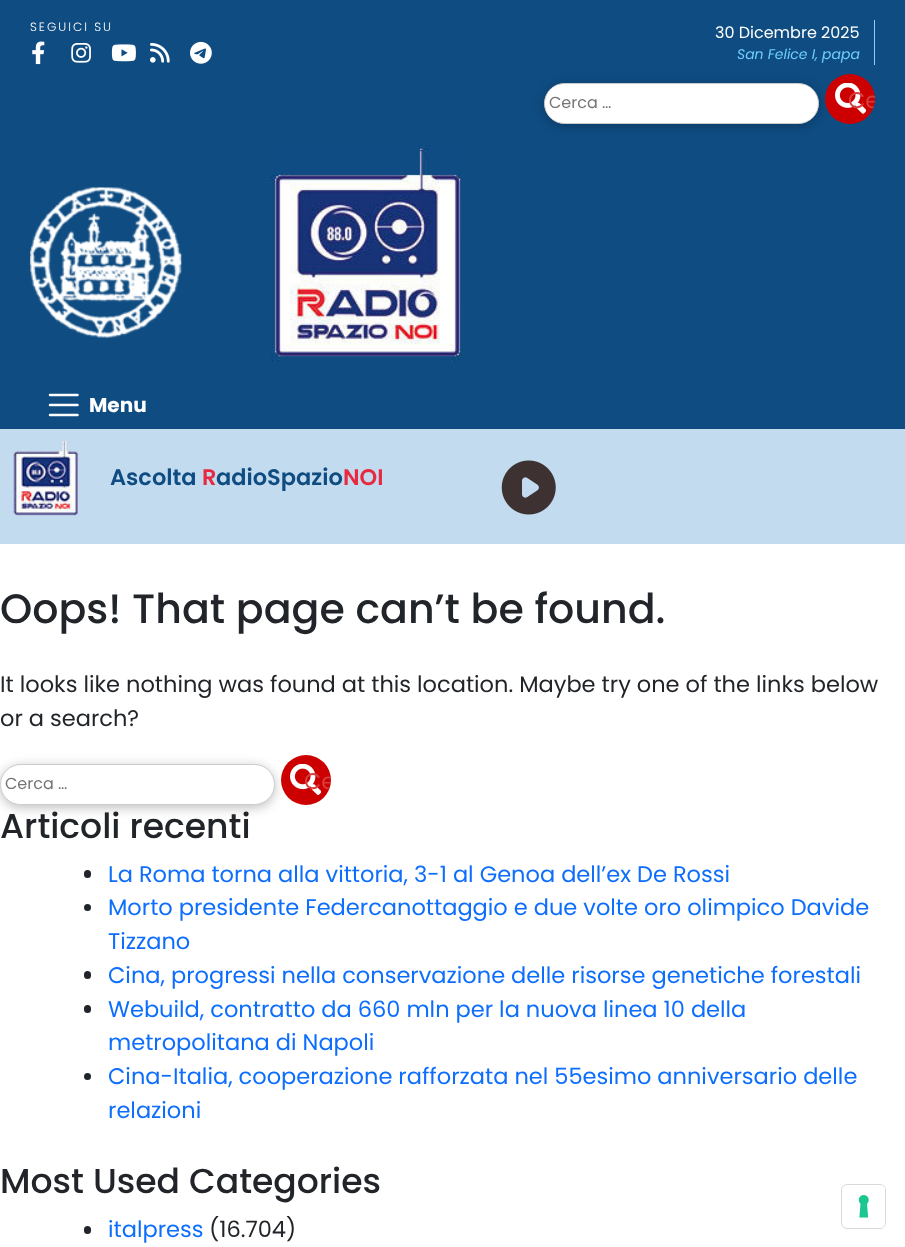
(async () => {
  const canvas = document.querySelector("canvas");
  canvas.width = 905;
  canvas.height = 1247;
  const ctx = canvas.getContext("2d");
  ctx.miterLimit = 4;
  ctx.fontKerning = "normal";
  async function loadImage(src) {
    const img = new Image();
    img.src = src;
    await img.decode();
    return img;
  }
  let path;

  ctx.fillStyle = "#ffffff";
  ctx.fillRect(0, 0, 905, 1247);
  ctx.fillStyle = "#0f4c82";
  ctx.fillRect(0, 0, 905, 429);
  ctx.drawImage(await loadImage("img/1.png"), 32, 41, 13, 24);
  ctx.drawImage(await loadImage("img/2.png"), 71, 43, 20, 20);
  ctx.drawImage(await loadImage("img/3.png"), 111, 44, 25, 18);
  ctx.drawImage(await loadImage("img/4.png"), 150, 43, 20, 20);
  ctx.drawImage(await loadImage("img/5.png"), 190, 41, 22, 23);
  ctx.fillStyle = "#87d1f6";
  ctx.fillRect(874, 20, 1, 45);
  ctx.fillStyle = "rgba(0, 0, 0, 0.24)";
  ctx.filter = "blur(5.5px)";
  ctx.beginPath();
  ctx.roundRect(544, 85, 275, 41, 20.5);
  ctx.fill();
  ctx.filter = "none";
  ctx.fillStyle = "#ffffff";
  ctx.beginPath();
  ctx.roundRect(544.5, 83.5, 274, 40, 20);
  ctx.fill();
  ctx.strokeStyle = "#cccccc";
  ctx.stroke();
  ctx.fillStyle = "#cc0000";
  ctx.beginPath();
  ctx.arc(850, 99, 25, 0, Math.PI * 2);
  ctx.fill();
  ctx.drawImage(await loadImage("img/6.png"), 835, 83, 31, 31);
  ctx.drawImage(await loadImage("img/7.png"), 30, 187, 152, 151);
  ctx.drawImage(await loadImage("img/8.png"), 270, 144, 191, 218);
  path = new Path2D("M50 395H77.5M50 405H77.5M50 415H77.5");
  ctx.strokeStyle = "#ffffff";
  ctx.lineWidth = 2.5;
  ctx.lineCap = "round";
  ctx.stroke(path);
  ctx.fillStyle = "#c3dbef";
  ctx.fillRect(0, 429, 905, 115);
  ctx.drawImage(await loadImage("img/9.png"), 12, 441, 67, 75);
  ctx.drawImage(await loadImage("img/10.png"), 501, 460, 55, 55);
  ctx.fillStyle = "rgba(0, 0, 0, 0.24)";
  ctx.filter = "blur(5.5px)";
  ctx.beginPath();
  ctx.roundRect(0, 766, 275, 42, 21);
  ctx.fill();
  ctx.filter = "none";
  ctx.fillStyle = "#ffffff";
  ctx.beginPath();
  ctx.roundRect(0.5, 764.5, 274, 40, 20);
  ctx.fill();
  ctx.strokeStyle = "#cccccc";
  ctx.lineWidth = 1;
  ctx.stroke();
  ctx.fillStyle = "#cc0000";
  ctx.beginPath();
  ctx.arc(306, 780, 25, 0, Math.PI * 2);
  ctx.fill();
  ctx.drawImage(await loadImage("img/11.png"), 290, 764, 31, 31);
  ctx.fillStyle = "#212529";
  ctx.beginPath();
  ctx.roundRect(84, 870, 7, 8, 3.5);
  ctx.fill();
  ctx.beginPath();
  ctx.arc(87.5, 907.5, 3.5, 0, Math.PI * 2);
  ctx.fill();
  ctx.beginPath();
  ctx.roundRect(84, 971, 7, 8, 3.5);
  ctx.fill();
  ctx.beginPath();
  ctx.roundRect(84, 1005, 7, 8, 3.5);
  ctx.fill();
  ctx.beginPath();
  ctx.arc(87.5, 1076.5, 3.5, 0, Math.PI * 2);
  ctx.fill();
  ctx.beginPath();
  ctx.roundRect(84, 1226, 7, 8, 3.5);
  ctx.fill();
  ctx.beginPath();
  ctx.roundRect(841.5, 1184.5, 44, 44, 5.5);
  ctx.strokeStyle = "#d9d9d9";
  ctx.stroke();
  ctx.fillStyle = "#ffffff";
  ctx.beginPath();
  ctx.roundRect(843, 1185, 42, 43, 5);
  ctx.fill();
  ctx.drawImage(await loadImage("img/12.png"), 858, 1195, 11, 23);
  ctx.letterSpacing = "2px";
  ctx.font = "300 12px Poppins";
  ctx.fillText("SEGUICI SU", 30, 31);
  ctx.letterSpacing = "0px";
  ctx.font = "16px Poppins";
  ctx.fillText("30 Dicembre 2025", 715, 38);
  ctx.font = "italic 14px Poppins";
  ctx.fillStyle = "#70cfff";
  ctx.fillText("San Felice I, papa", 737, 59);
  ctx.font = "16px Poppins";
  ctx.fillStyle = "#757575";
  ctx.fillText("Cerca …", 549, 108);
  ctx.save();
  ctx.beginPath();
  ctx.roundRect(825, 74, 50, 50, 25);
  ctx.clip();
  ctx.font = "22.5px Poppins";
  ctx.fillStyle = "#d63e3f";
  ctx.fillText("Ce", 848, 108);
  ctx.restore();
  ctx.font = "bold 20px Poppins";
  ctx.fillStyle = "#ffffff";
  ctx.fillText("Menu", 89, 412);
  ctx.font = "600 22.5px Poppins";
  ctx.fillStyle = "#0f4c82";
  ctx.fillText("Ascolta", 110, 485);
  ctx.fillStyle = "#e72942";
  ctx.fillText("R", 202, 485);
  ctx.fillStyle = "#0f4c82";
  ctx.fillText("adioSpazio", 216, 485);
  ctx.fillStyle = "#e72942";
  ctx.fillText("NOI", 343, 485);
  ctx.font = "500 41.1px Poppins";
  ctx.fillStyle = "#212529";
  ctx.fillText("Oops! That page can’t be found.", 0, 623);
  ctx.font = "22.5px Poppins";
  ctx.fillText("It looks like nothing was found at this location. Maybe try one of the links below", 0, 692);
  ctx.fillText("or a search?", 0, 726);
  ctx.font = "16px Poppins";
  ctx.fillStyle = "#757575";
  ctx.fillText("Cerca …", 5, 789);
  ctx.save();
  ctx.beginPath();
  ctx.roundRect(281, 755, 50, 50, 25);
  ctx.clip();
  ctx.font = "22.5px Poppins";
  ctx.fillStyle = "#d63e3f";
  ctx.fillText("Ce", 304, 789);
  ctx.restore();
  ctx.font = "500 34.6px Poppins";
  ctx.fillStyle = "#212529";
  ctx.fillText("Articoli recenti", 0, 838);
  ctx.font = "22.5px Poppins";
  ctx.fillStyle = "#0d6efd";
  for (const [text, x, y] of [
    ["La Roma torna alla vittoria, 3-1 al Genoa dell’ex De Rossi", 108, 882],
    ["Morto presidente Federcanottaggio e due volte oro olimpico Davide", 108, 915],
    ["Tizzano", 108, 949],
    ["Cina, progressi nella conservazione delle risorse genetiche forestali", 108, 983],
    ["Webuild, contratto da 660 mln per la nuova linea 10 della", 108, 1017],
    ["metropolitana di Napoli", 108, 1050],
    ["Cina-Italia, cooperazione rafforzata nel 55esimo anniversario delle", 108, 1084],
    ["relazioni", 108, 1118],
  ]) {
    ctx.fillText(text, x, y);
  }
  ctx.font = "500 34.6px Poppins";
  ctx.fillStyle = "#212529";
  ctx.fillText("Most Used Categories", 0, 1193);
  ctx.font = "22.5px Poppins";
  ctx.fillStyle = "#0d6efd";
  ctx.fillText("italpress", 108, 1237);
  ctx.fillStyle = "#212529";
  ctx.fillText("(16.704)", 209, 1237);
})();
